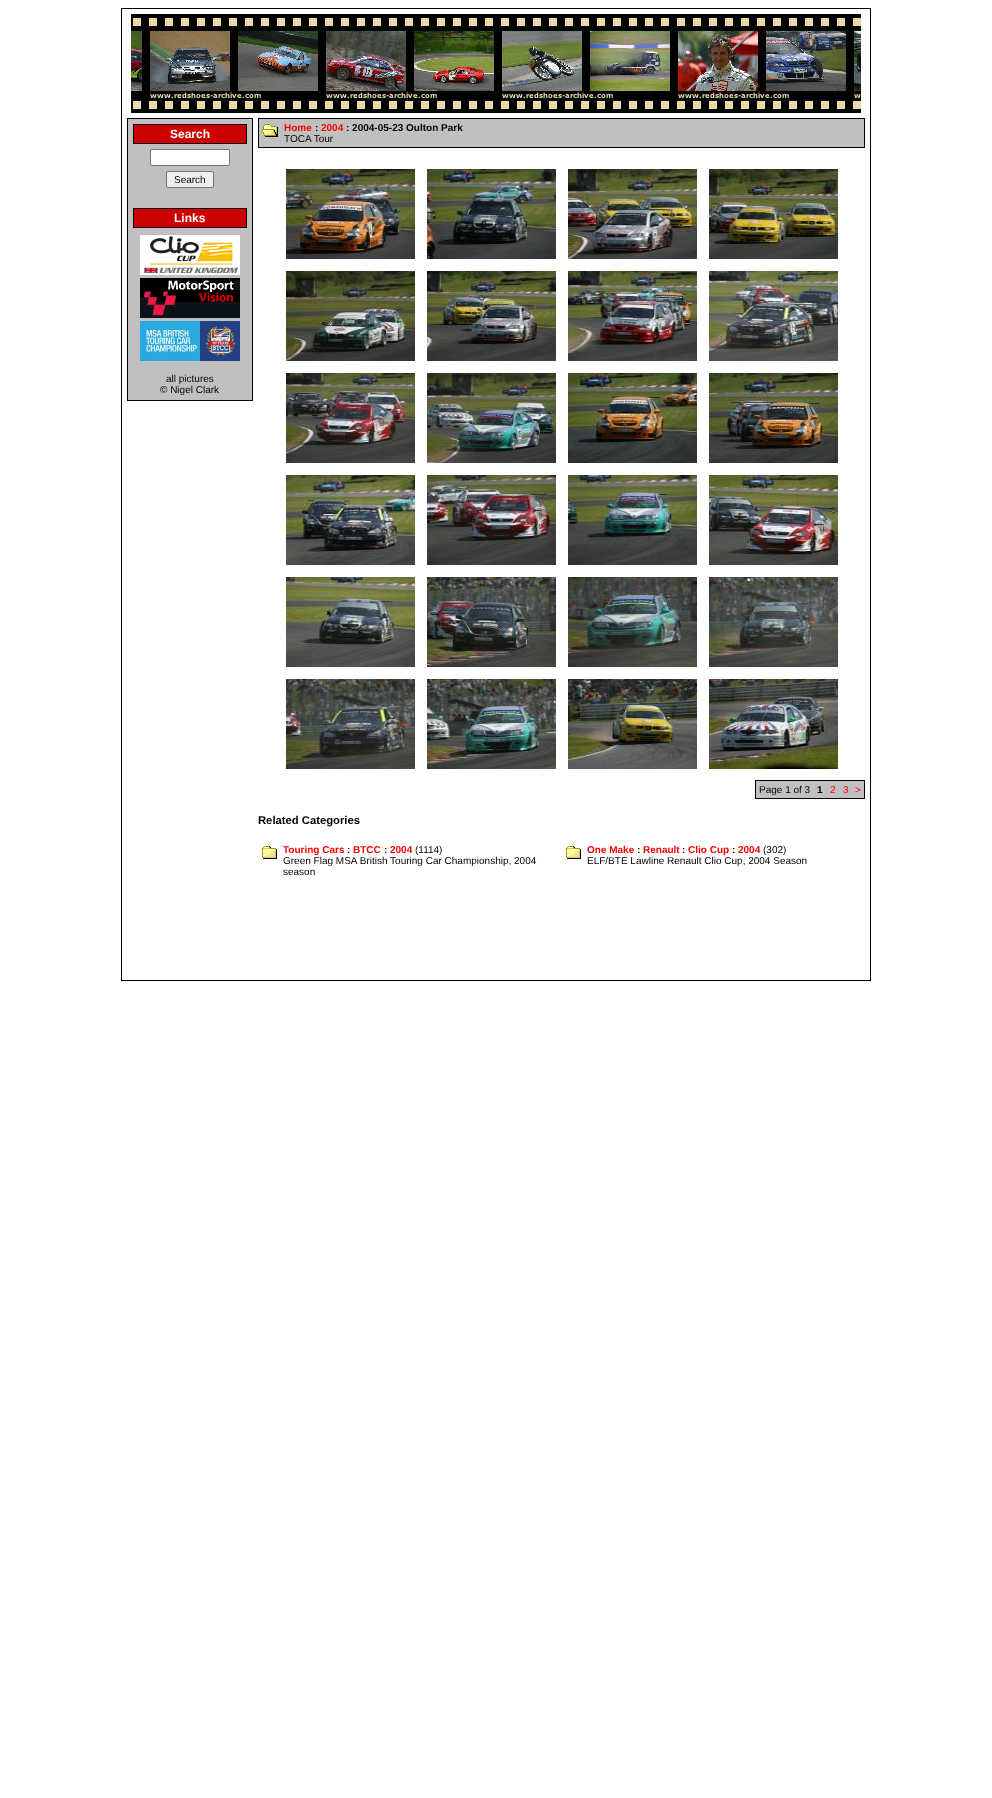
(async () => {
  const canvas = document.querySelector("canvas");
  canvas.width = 992;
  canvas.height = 1798;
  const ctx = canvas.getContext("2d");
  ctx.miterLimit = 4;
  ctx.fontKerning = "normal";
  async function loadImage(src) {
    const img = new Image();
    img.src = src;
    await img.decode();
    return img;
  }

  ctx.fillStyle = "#ffffff";
  ctx.fillRect(0, 0, 992, 1798);
  ctx.fillStyle = "#000000";
  ctx.fillRect(121, 8, 750, 973);
  ctx.fillStyle = "#ffffff";
  ctx.fillRect(122, 9, 748, 971);
  ctx.drawImage(await loadImage("img/1.png"), 131, 14, 18, 99);
  ctx.drawImage(await loadImage("img/2.png"), 149, 14, 176, 99);
  ctx.drawImage(await loadImage("img/3.png"), 325, 14, 176, 99);
  ctx.drawImage(await loadImage("img/4.png"), 501, 14, 176, 99);
  ctx.drawImage(await loadImage("img/5.png"), 677, 14, 176, 99);
  ctx.drawImage(await loadImage("img/6.png"), 853, 14, 8, 99);
  for (const [x, y, w, h, color] of [
    [127, 118, 126, 283, "#000000"],
    [128, 119, 124, 281, "#c0c0c0"],
    [133, 124, 114, 20, "#000000"],
    [134, 125, 112, 18, "#ce0000"],
  ]) {
    ctx.fillStyle = color;
    ctx.fillRect(x, y, w, h);
  }
  ctx.fillStyle = "#ffffff";
  ctx.beginPath();
  ctx.roundRect(150.5, 149.5, 79, 16, 1.5);
  ctx.fill();
  ctx.strokeStyle = "#767676";
  ctx.stroke();
  ctx.fillStyle = "#efefef";
  ctx.beginPath();
  ctx.roundRect(166.5, 171.5, 47, 16, 1.5);
  ctx.fill();
  ctx.stroke();
  ctx.fillStyle = "#000000";
  ctx.fillRect(133, 208, 114, 20);
  ctx.fillStyle = "#ce0000";
  ctx.fillRect(134, 209, 112, 18);
  ctx.drawImage(await loadImage("img/7.png"), 140, 235, 100, 40);
  ctx.drawImage(await loadImage("img/8.png"), 140, 278, 100, 40);
  ctx.drawImage(await loadImage("img/9.png"), 140, 321, 100, 40);
  ctx.fillStyle = "#000000";
  ctx.fillRect(258, 118, 607, 30);
  ctx.fillStyle = "#c0c0c0";
  ctx.fillRect(259, 119, 605, 28);
  ctx.drawImage(await loadImage("img/10.png"), 262, 124, 16, 13);
  ctx.drawImage(await loadImage("img/11.png"), 286, 169, 129, 90);
  ctx.drawImage(await loadImage("img/12.png"), 427, 169, 129, 90);
  ctx.drawImage(await loadImage("img/13.png"), 568, 169, 129, 90);
  ctx.drawImage(await loadImage("img/14.png"), 709, 169, 129, 90);
  ctx.drawImage(await loadImage("img/15.png"), 286, 271, 129, 90);
  ctx.drawImage(await loadImage("img/16.png"), 427, 271, 129, 90);
  ctx.drawImage(await loadImage("img/17.png"), 568, 271, 129, 90);
  ctx.drawImage(await loadImage("img/18.png"), 709, 271, 129, 90);
  ctx.drawImage(await loadImage("img/19.png"), 286, 373, 129, 90);
  ctx.drawImage(await loadImage("img/20.png"), 427, 373, 129, 90);
  ctx.drawImage(await loadImage("img/21.png"), 568, 373, 129, 90);
  ctx.drawImage(await loadImage("img/22.png"), 709, 373, 129, 90);
  ctx.drawImage(await loadImage("img/23.png"), 286, 475, 129, 90);
  ctx.drawImage(await loadImage("img/24.png"), 427, 475, 129, 90);
  ctx.drawImage(await loadImage("img/25.png"), 568, 475, 129, 90);
  ctx.drawImage(await loadImage("img/26.png"), 709, 475, 129, 90);
  ctx.drawImage(await loadImage("img/27.png"), 286, 577, 129, 90);
  ctx.drawImage(await loadImage("img/28.png"), 427, 577, 129, 90);
  ctx.drawImage(await loadImage("img/29.png"), 568, 577, 129, 90);
  ctx.drawImage(await loadImage("img/30.png"), 709, 577, 129, 90);
  ctx.drawImage(await loadImage("img/31.png"), 286, 679, 129, 90);
  ctx.drawImage(await loadImage("img/32.png"), 427, 679, 129, 90);
  ctx.drawImage(await loadImage("img/33.png"), 568, 679, 129, 90);
  ctx.drawImage(await loadImage("img/34.png"), 709, 679, 129, 90);
  ctx.fillStyle = "#000000";
  ctx.fillRect(755, 780, 110, 19);
  ctx.fillStyle = "#c0c0c0";
  ctx.fillRect(756, 781, 108, 17);
  ctx.drawImage(await loadImage("img/35.png"), 262, 846, 15, 13);
  ctx.drawImage(await loadImage("img/35.png"), 566, 846, 15, 13);
  ctx.font = "bold 12px Liberation Sans";
  ctx.fillStyle = "#ffffff";
  ctx.fillText("Search", 170, 138);
  ctx.font = "10px Liberation Sans";
  ctx.fillStyle = "#000000";
  ctx.fillText("Search", 174, 183);
  ctx.font = "bold 12px Liberation Sans";
  ctx.fillStyle = "#ffffff";
  ctx.fillText("Links", 174, 222);
  ctx.font = "10px Liberation Sans";
  ctx.fillStyle = "#000000";
  ctx.fillText("all pictures", 166, 382);
  ctx.fillText("© Nigel Clark", 160, 393);
  ctx.font = "bold 10px Liberation Sans";
  ctx.fillStyle = "#f70000";
  ctx.fillText("Home", 284, 131);
  ctx.fillStyle = "#000000";
  ctx.fillText(":", 315, 131);
  ctx.fillStyle = "#f70000";
  ctx.fillText("2004", 321, 131);
  ctx.fillStyle = "#000000";
  ctx.fillText(": 2004-05-23 Oulton Park", 346, 131);
  ctx.font = "10px Liberation Sans";
  ctx.fillText("TOCA Tour", 284, 142);
  ctx.fillText("Page 1 of 3", 759, 793);
  ctx.font = "bold 10px Liberation Sans";
  ctx.fillText("1", 817, 793);
  ctx.font = "10px Liberation Sans";
  ctx.fillStyle = "#f70000";
  for (const [text, x, y] of [
    ["2", 830, 793],
    ["3", 843, 793],
    [">", 855, 793],
  ]) {
    ctx.fillText(text, x, y);
  }
  ctx.font = "bold 11.25px Liberation Sans";
  ctx.fillStyle = "#000000";
  ctx.fillText("Related Categories", 258, 824);
  ctx.font = "bold 10px Liberation Sans";
  ctx.fillStyle = "#f70000";
  ctx.fillText("Touring Cars", 283, 853);
  ctx.fillStyle = "#000000";
  ctx.fillText(":", 347, 853);
  ctx.fillStyle = "#f70000";
  ctx.fillText("BTCC", 353, 853);
  ctx.fillStyle = "#000000";
  ctx.fillText(":", 384, 853);
  ctx.fillStyle = "#f70000";
  ctx.fillText("2004", 390, 853);
  ctx.font = "10px Liberation Sans";
  ctx.fillStyle = "#000000";
  for (const [text, x, y] of [
    ["(1114)", 415, 853],
    ["Green Flag MSA British Touring Car Championship, 2004", 283, 864],
    ["season", 283, 875],
  ]) {
    ctx.fillText(text, x, y);
  }
  ctx.font = "bold 10px Liberation Sans";
  ctx.fillStyle = "#f70000";
  ctx.fillText("One Make", 587, 853);
  ctx.fillStyle = "#000000";
  ctx.fillText(":", 637, 853);
  ctx.fillStyle = "#f70000";
  ctx.fillText("Renault", 643, 853);
  ctx.fillStyle = "#000000";
  ctx.fillText(":", 682, 853);
  ctx.fillStyle = "#f70000";
  ctx.fillText("Clio Cup", 688, 853);
  ctx.fillStyle = "#000000";
  ctx.fillText(":", 732, 853);
  ctx.fillStyle = "#f70000";
  ctx.fillText("2004", 738, 853);
  ctx.font = "10px Liberation Sans";
  ctx.fillStyle = "#000000";
  ctx.fillText("(302)", 763, 853);
  ctx.fillText("ELF/BTE Lawline Renault Clio Cup, 2004 Season", 587, 864);
})();
